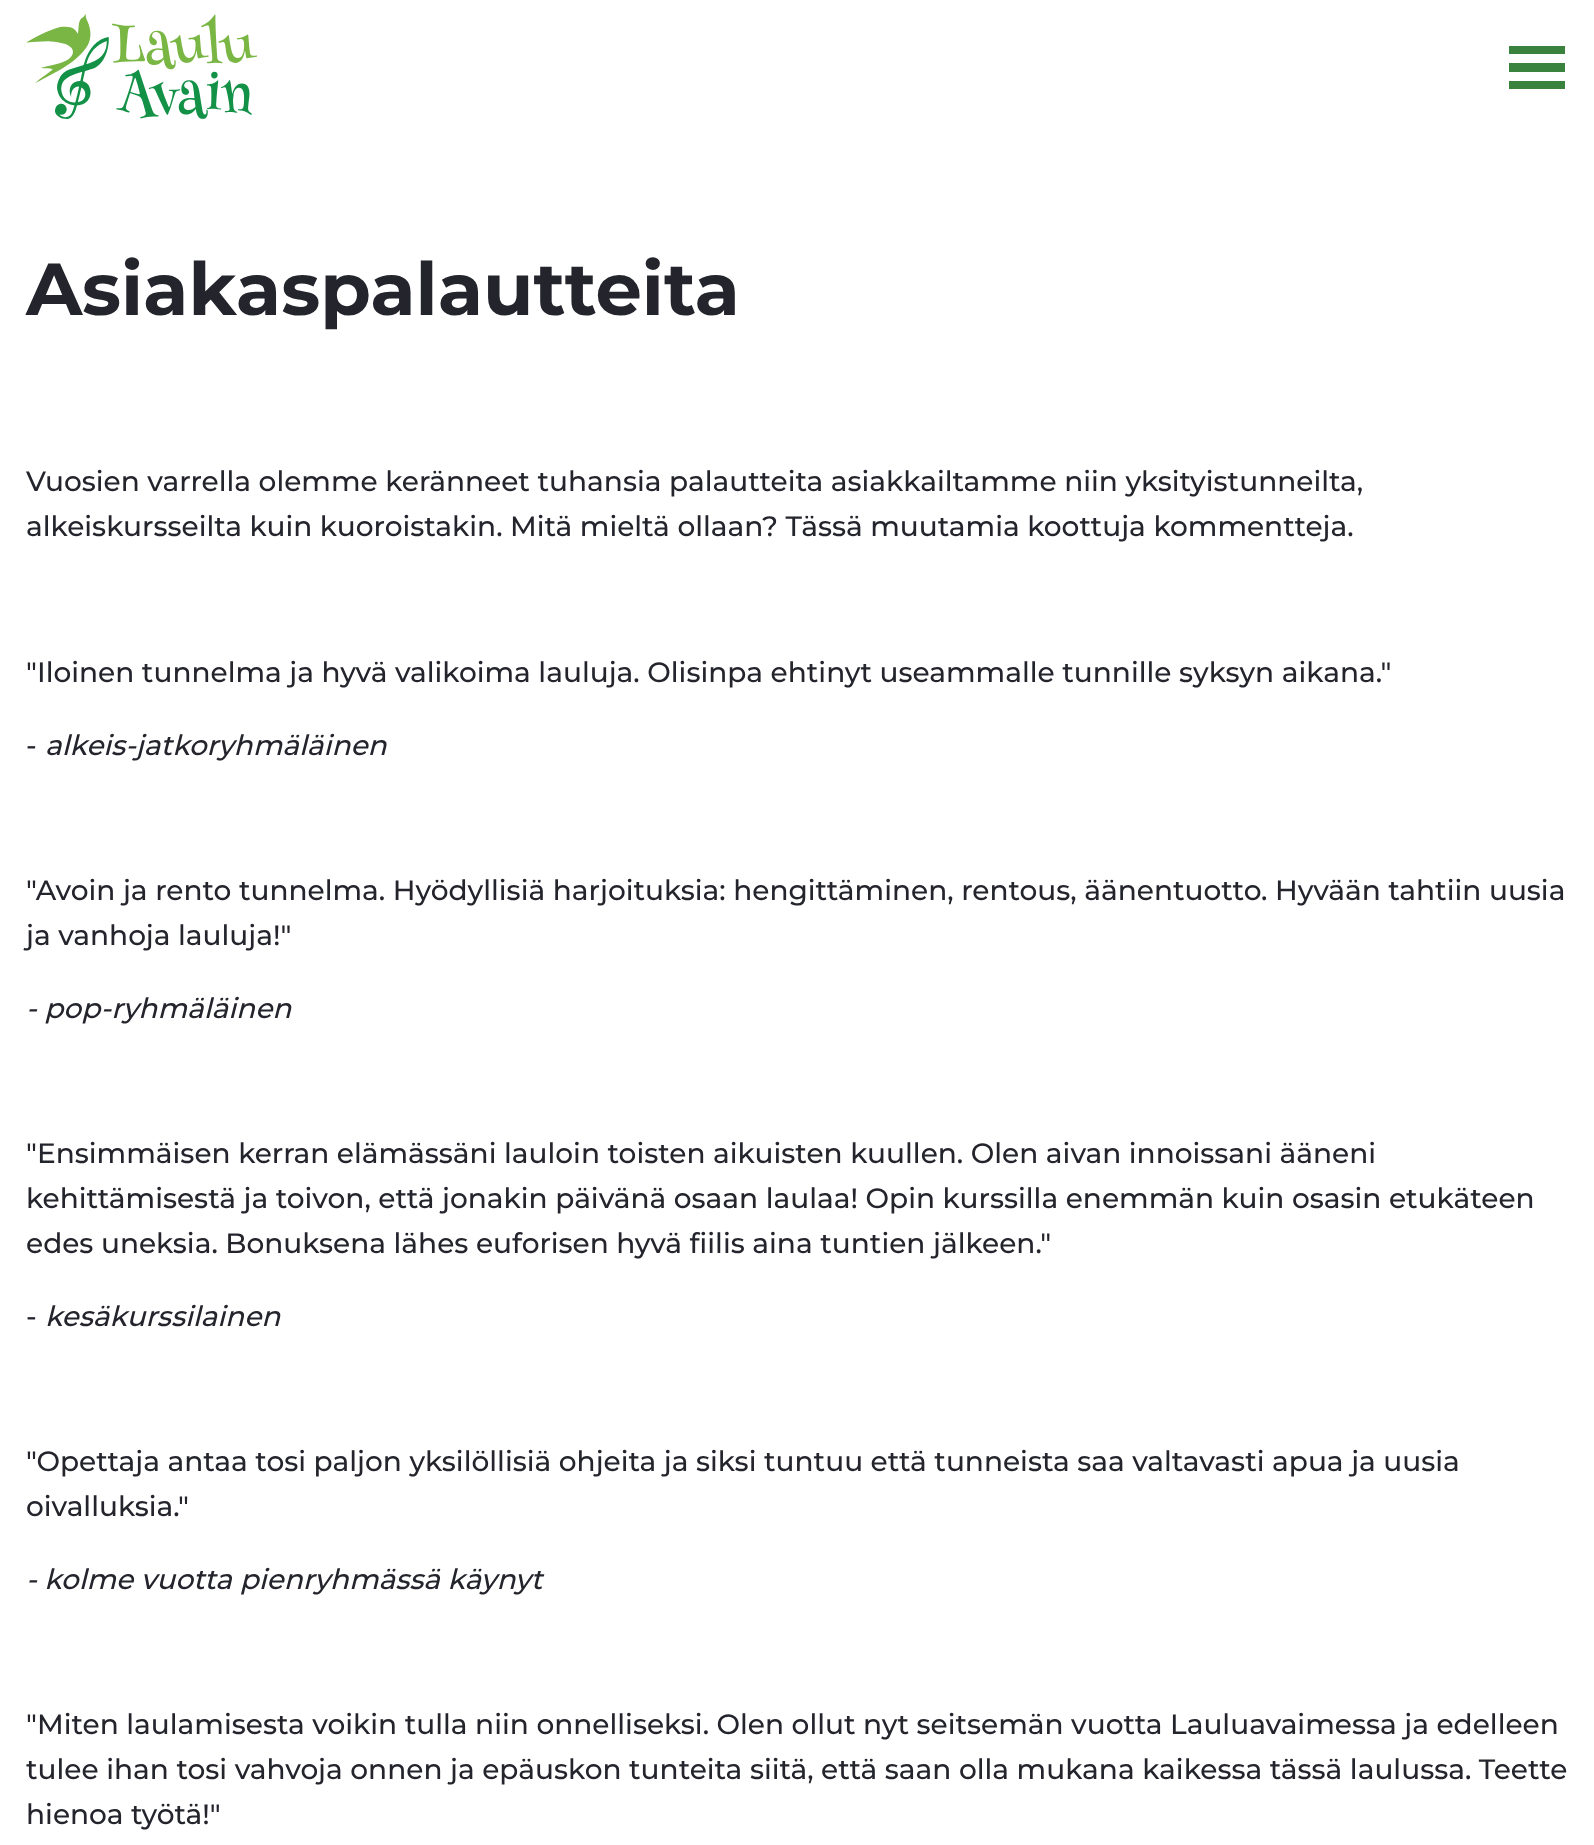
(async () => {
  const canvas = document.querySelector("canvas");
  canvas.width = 1594;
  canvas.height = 1845;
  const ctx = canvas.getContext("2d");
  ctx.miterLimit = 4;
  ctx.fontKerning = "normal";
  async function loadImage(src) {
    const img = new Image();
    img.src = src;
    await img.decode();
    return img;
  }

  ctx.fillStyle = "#ffffff";
  ctx.fillRect(0, 0, 1594, 1845);
  ctx.drawImage(await loadImage("img/1.png"), 26, 14, 231, 105);
  for (const [x, y, w, h, color] of [
    [1509, 81, 56, 8, "#3a833e"],
    [1509, 63, 56, 9, "#3a833e"],
    [1509, 46, 56, 8, "#3a833e"],
  ]) {
    ctx.fillStyle = color;
    ctx.fillRect(x, y, w, h);
  }
  ctx.font = "bold 73.5px Montserrat";
  ctx.fillStyle = "#23242c";
  ctx.fillText("Asiakaspalautteita", 26, 315);
  ctx.font = "500 28px Montserrat";
  for (const [text, x, y] of [
    ["Vuosien varrella olemme keränneet tuhansia palautteita asiakkailtamme niin yksityistunneilta,", 26, 491],
    ["alkeiskursseilta kuin kuoroistakin. Mitä mieltä ollaan? Tässä muutamia koottuja kommentteja.", 26, 536],
    ["\"Iloinen tunnelma ja hyvä valikoima lauluja. Olisinpa ehtinyt useammalle tunnille syksyn aikana.\"", 26, 682],
    ["-", 26, 755],
  ]) {
    ctx.fillText(text, x, y);
  }
  ctx.font = "italic 500 28px Montserrat";
  ctx.fillText("alkeis-jatkoryhmäläinen", 45, 755);
  ctx.font = "500 28px Montserrat";
  ctx.fillText("\"Avoin ja rento tunnelma. Hyödyllisiä harjoituksia: hengittäminen, rentous, äänentuotto. Hyvään tahtiin uusia", 26, 900);
  ctx.fillText("ja vanhoja lauluja!\"", 26, 945);
  ctx.font = "italic 500 28px Montserrat";
  ctx.fillText("- pop-ryhmäläinen", 26, 1018);
  ctx.font = "500 28px Montserrat";
  for (const [text, x, y] of [
    ["\"Ensimmäisen kerran elämässäni lauloin toisten aikuisten kuullen. Olen aivan innoissani ääneni", 26, 1163],
    ["kehittämisestä ja toivon, että jonakin päivänä osaan laulaa! Opin kurssilla enemmän kuin osasin etukäteen", 26, 1208],
    ["edes uneksia. Bonuksena lähes euforisen hyvä fiilis aina tuntien jälkeen.\"", 26, 1253],
    ["-", 26, 1326],
  ]) {
    ctx.fillText(text, x, y);
  }
  ctx.font = "italic 500 28px Montserrat";
  ctx.fillText("kesäkurssilainen", 45, 1326);
  ctx.font = "500 28px Montserrat";
  ctx.fillText("\"Opettaja antaa tosi paljon yksilöllisiä ohjeita ja siksi tuntuu että tunneista saa valtavasti apua ja uusia", 26, 1471);
  ctx.fillText("oivalluksia.\"", 26, 1516);
  ctx.font = "italic 500 28px Montserrat";
  ctx.fillText("- kolme vuotta pienryhmässä käynyt", 26, 1589);
  ctx.font = "500 28px Montserrat";
  for (const [text, x, y] of [
    ["\"Miten laulamisesta voikin tulla niin onnelliseksi. Olen ollut nyt seitsemän vuotta Lauluavaimessa ja edelleen", 26, 1734],
    ["tulee ihan tosi vahvoja onnen ja epäuskon tunteita siitä, että saan olla mukana kaikessa tässä laulussa. Teette", 26, 1779],
    ["hienoa työtä!\"", 26, 1824],
  ]) {
    ctx.fillText(text, x, y);
  }
})();
